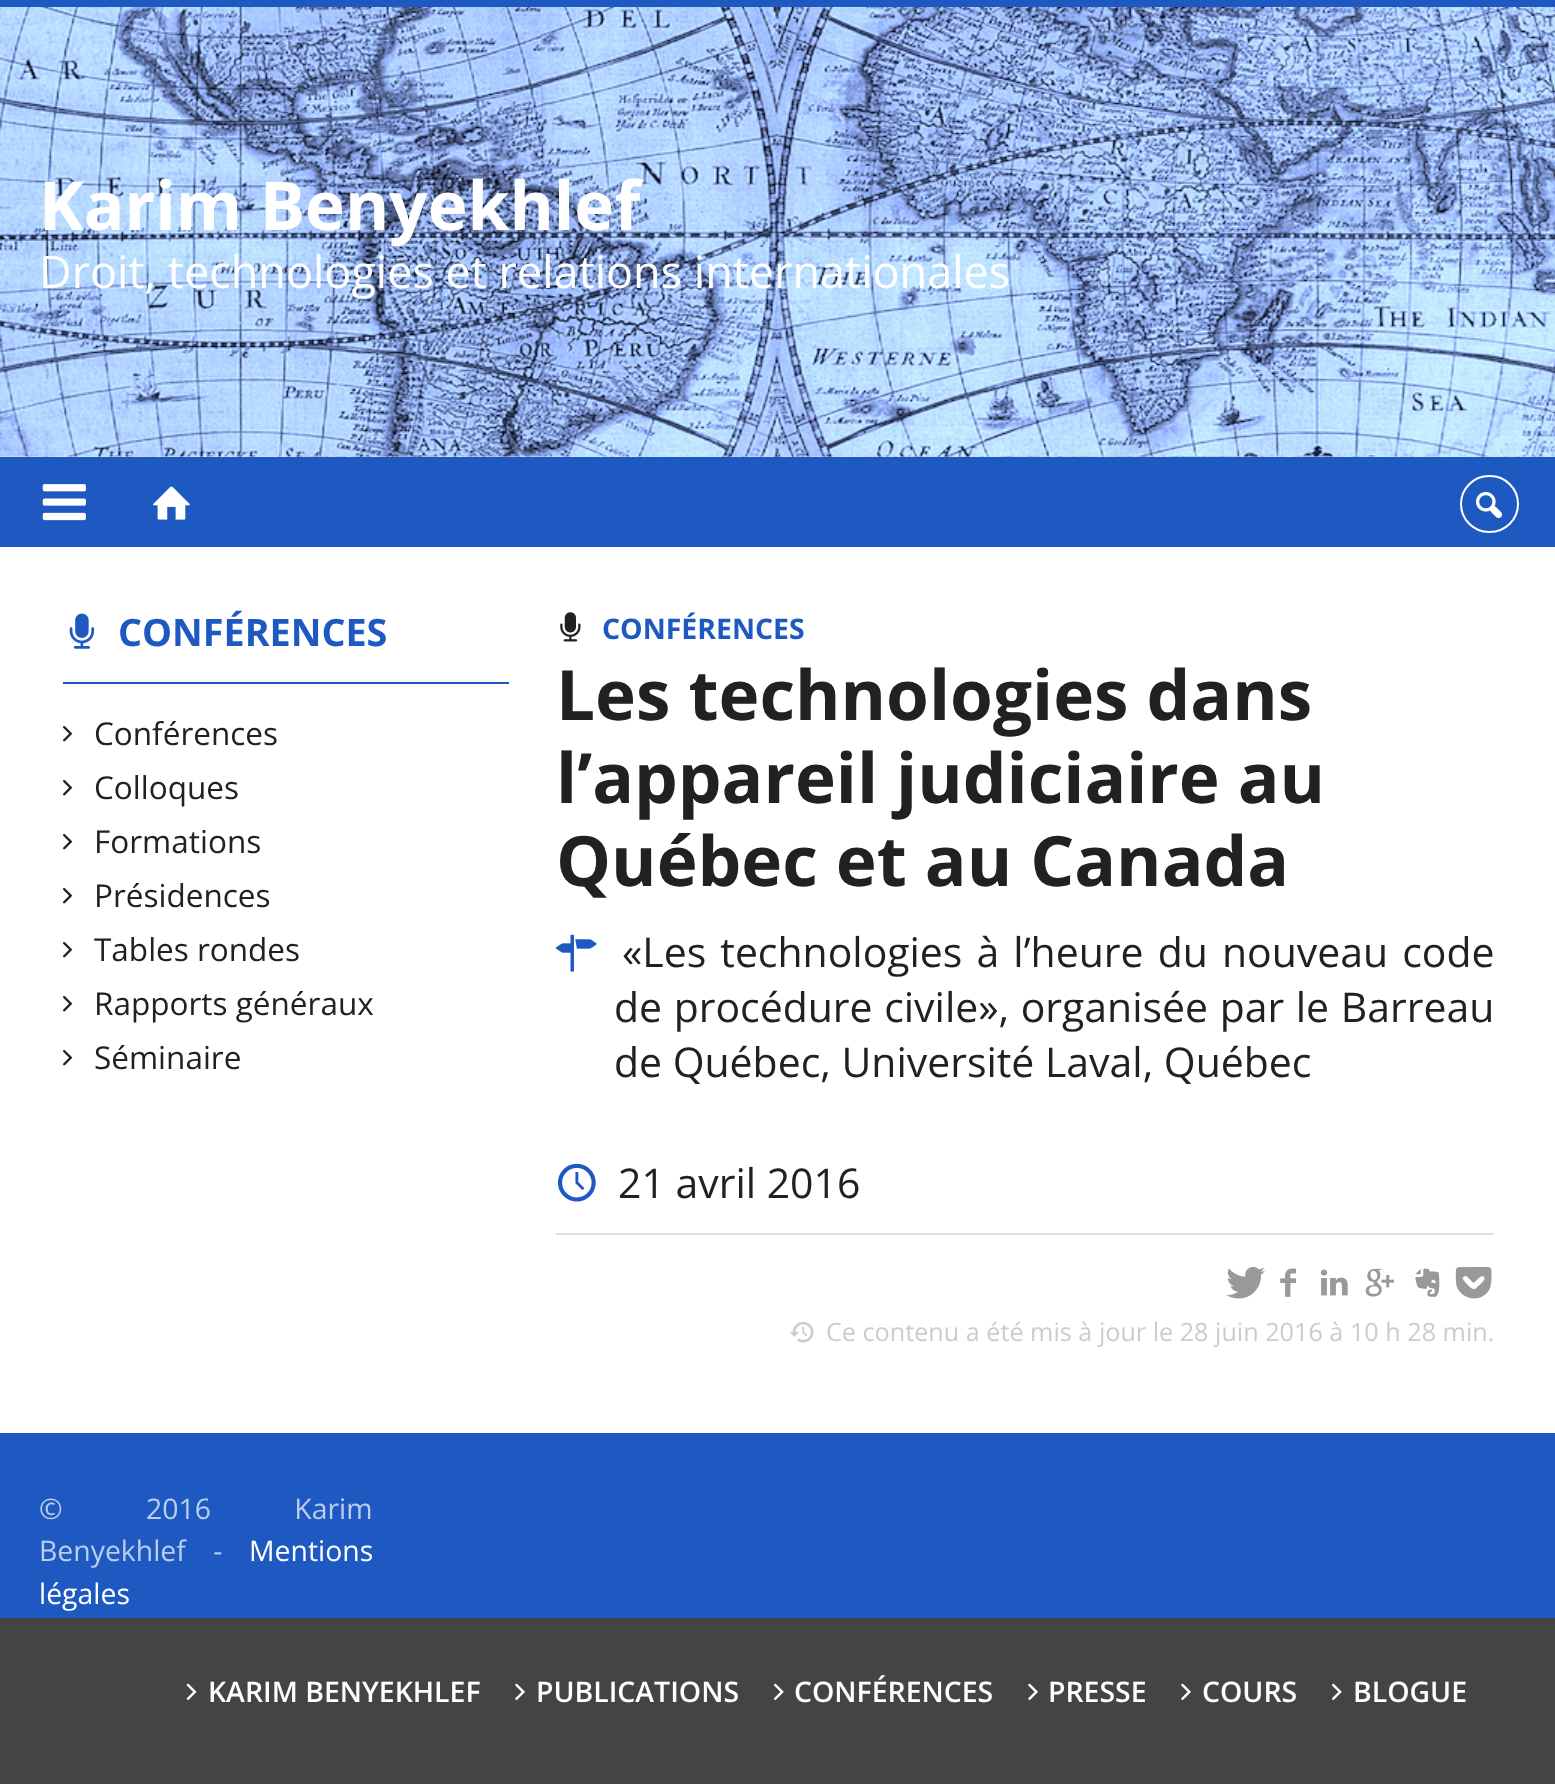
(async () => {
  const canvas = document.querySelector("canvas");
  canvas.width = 1555;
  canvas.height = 1784;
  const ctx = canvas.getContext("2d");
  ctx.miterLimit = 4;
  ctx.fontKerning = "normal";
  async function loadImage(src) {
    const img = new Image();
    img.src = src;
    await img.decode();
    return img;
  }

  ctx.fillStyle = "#ffffff";
  ctx.fillRect(0, 0, 1555, 1784);
  ctx.drawImage(await loadImage("img/1.png"), 0, 7, 1555, 450);
  ctx.fillStyle = "#1d59c1";
  ctx.fillRect(0, 0, 1555, 7);
  ctx.fillRect(0, 457, 1555, 90);
  ctx.drawImage(await loadImage("img/2.png"), 42, 484, 44, 37);
  ctx.drawImage(await loadImage("img/3.png"), 153, 486, 37, 34);
  ctx.beginPath();
  ctx.roundRect(1461, 476, 57, 56, 28);
  ctx.strokeStyle = "#ffffff";
  ctx.lineWidth = 2;
  ctx.stroke();
  ctx.drawImage(await loadImage("img/4.png"), 1476, 491, 27, 28);
  ctx.fillRect(63, 682, 446, 2);
  ctx.drawImage(await loadImage("img/5.png"), 69, 613, 26, 36);
  ctx.drawImage(await loadImage("img/6.png"), 63, 726, 10, 16);
  ctx.drawImage(await loadImage("img/6.png"), 63, 780, 10, 16);
  ctx.drawImage(await loadImage("img/6.png"), 63, 834, 10, 16);
  ctx.drawImage(await loadImage("img/6.png"), 63, 888, 10, 16);
  ctx.drawImage(await loadImage("img/6.png"), 63, 942, 10, 16);
  ctx.drawImage(await loadImage("img/6.png"), 63, 996, 10, 16);
  ctx.drawImage(await loadImage("img/6.png"), 63, 1050, 10, 16);
  ctx.drawImage(await loadImage("img/7.png"), 560, 612, 21, 30);
  ctx.drawImage(await loadImage("img/8.png"), 555, 934, 42, 38);
  ctx.drawImage(await loadImage("img/9.png"), 558, 1163, 38, 39);
  ctx.fillStyle = "#dddddd";
  ctx.fillRect(556, 1233, 938, 2);
  ctx.drawImage(await loadImage("img/10.png"), 1226, 1267, 39, 32);
  ctx.drawImage(await loadImage("img/11.png"), 1280, 1268, 16, 29);
  ctx.drawImage(await loadImage("img/12.png"), 1320, 1269, 28, 27);
  ctx.drawImage(await loadImage("img/13.png"), 1365, 1268, 29, 29);
  ctx.drawImage(await loadImage("img/14.png"), 1415, 1268, 25, 29);
  ctx.drawImage(await loadImage("img/15.png"), 1455, 1267, 37, 32);
  ctx.drawImage(await loadImage("img/16.png"), 790, 1321, 24, 22);
  ctx.fillStyle = "#444444";
  ctx.fillRect(0, 1618, 1555, 166);
  ctx.fillStyle = "#1d59c1";
  ctx.fillRect(0, 1433, 1555, 185);
  ctx.drawImage(await loadImage("img/17.png"), 186, 1683, 11, 17);
  ctx.drawImage(await loadImage("img/18.png"), 515, 1683, 10, 17);
  ctx.drawImage(await loadImage("img/19.png"), 774, 1683, 10, 17);
  ctx.drawImage(await loadImage("img/18.png"), 1028, 1683, 10, 17);
  ctx.drawImage(await loadImage("img/18.png"), 1181, 1683, 10, 17);
  ctx.drawImage(await loadImage("img/19.png"), 1332, 1683, 10, 17);
  ctx.font = "bold 67.5px Open Sans";
  ctx.fillStyle = "#ffffff";
  ctx.fillText("Karim Benyekhlef", 39, 230);
  ctx.font = "45px Open Sans";
  ctx.fillText("Droit, technologies et relations internationales", 39, 288);
  ctx.font = "bold 37.75px Open Sans";
  ctx.fillStyle = "#1d59c1";
  ctx.fillText("CONFÉRENCES", 118, 646);
  ctx.font = "31.5px Open Sans";
  ctx.fillStyle = "#212121";
  for (const [text, x, y] of [
    ["Conférences", 94, 745],
    ["Colloques", 94, 799],
    ["Formations", 94, 853],
    ["Présidences", 94, 907],
    ["Tables rondes", 94, 961],
    ["Rapports généraux", 94, 1015],
    ["Séminaire", 94, 1069],
  ]) {
    ctx.fillText(text, x, y);
  }
  ctx.font = "bold 28.4px Open Sans";
  ctx.fillStyle = "#1d59c1";
  ctx.fillText("CONFÉRENCES", 602, 639);
  ctx.font = "bold 69.25px Open Sans";
  ctx.fillStyle = "#212121";
  for (const [text, x, y] of [
    ["Les technologies dans", 556, 720],
    ["l’appareil judiciaire au", 556, 803],
    ["Québec et au Canada", 556, 886],
  ]) {
    ctx.fillText(text, x, y);
  }
  ctx.wordSpacing = "3.5px";
  ctx.font = "40.95px Open Sans";
  ctx.fillText("«Les technologies à l’heure du nouveau code", 622, 967);
  ctx.wordSpacing = "1px";
  ctx.fillText("de procédure civile», organisée par le Barreau", 614, 1022);
  ctx.wordSpacing = "0px";
  ctx.fillText("de Québec, Université Laval, Québec", 614, 1077);
  ctx.fillText("21 avril 2016", 618, 1198);
  ctx.font = "25.2px Open Sans";
  ctx.fillStyle = "#cccccc";
  ctx.fillText("Ce contenu a été mis à jour le 28 juin 2016 à 10 h 28 min.", 826, 1341);
  ctx.wordSpacing = "76px";
  ctx.font = "28.4px Open Sans";
  ctx.fillStyle = "#bbcdec";
  ctx.fillText("© 2016 Karim", 39, 1519);
  ctx.wordSpacing = "20px";
  ctx.fillText("Benyekhlef -", 39, 1561);
  ctx.wordSpacing = "0px";
  ctx.fillStyle = "#ffffff";
  ctx.fillText("Mentions", 249, 1561);
  ctx.fillText("légales", 39, 1604);
  ctx.font = "600 28.4px Open Sans";
  for (const [text, x, y] of [
    ["KARIM BENYEKHLEF", 208, 1702],
    ["PUBLICATIONS", 536, 1702],
    ["CONFÉRENCES", 794, 1702],
    ["PRESSE", 1048, 1702],
    ["COURS", 1202, 1702],
    ["BLOGUE", 1353, 1702],
  ]) {
    ctx.fillText(text, x, y);
  }
})();
